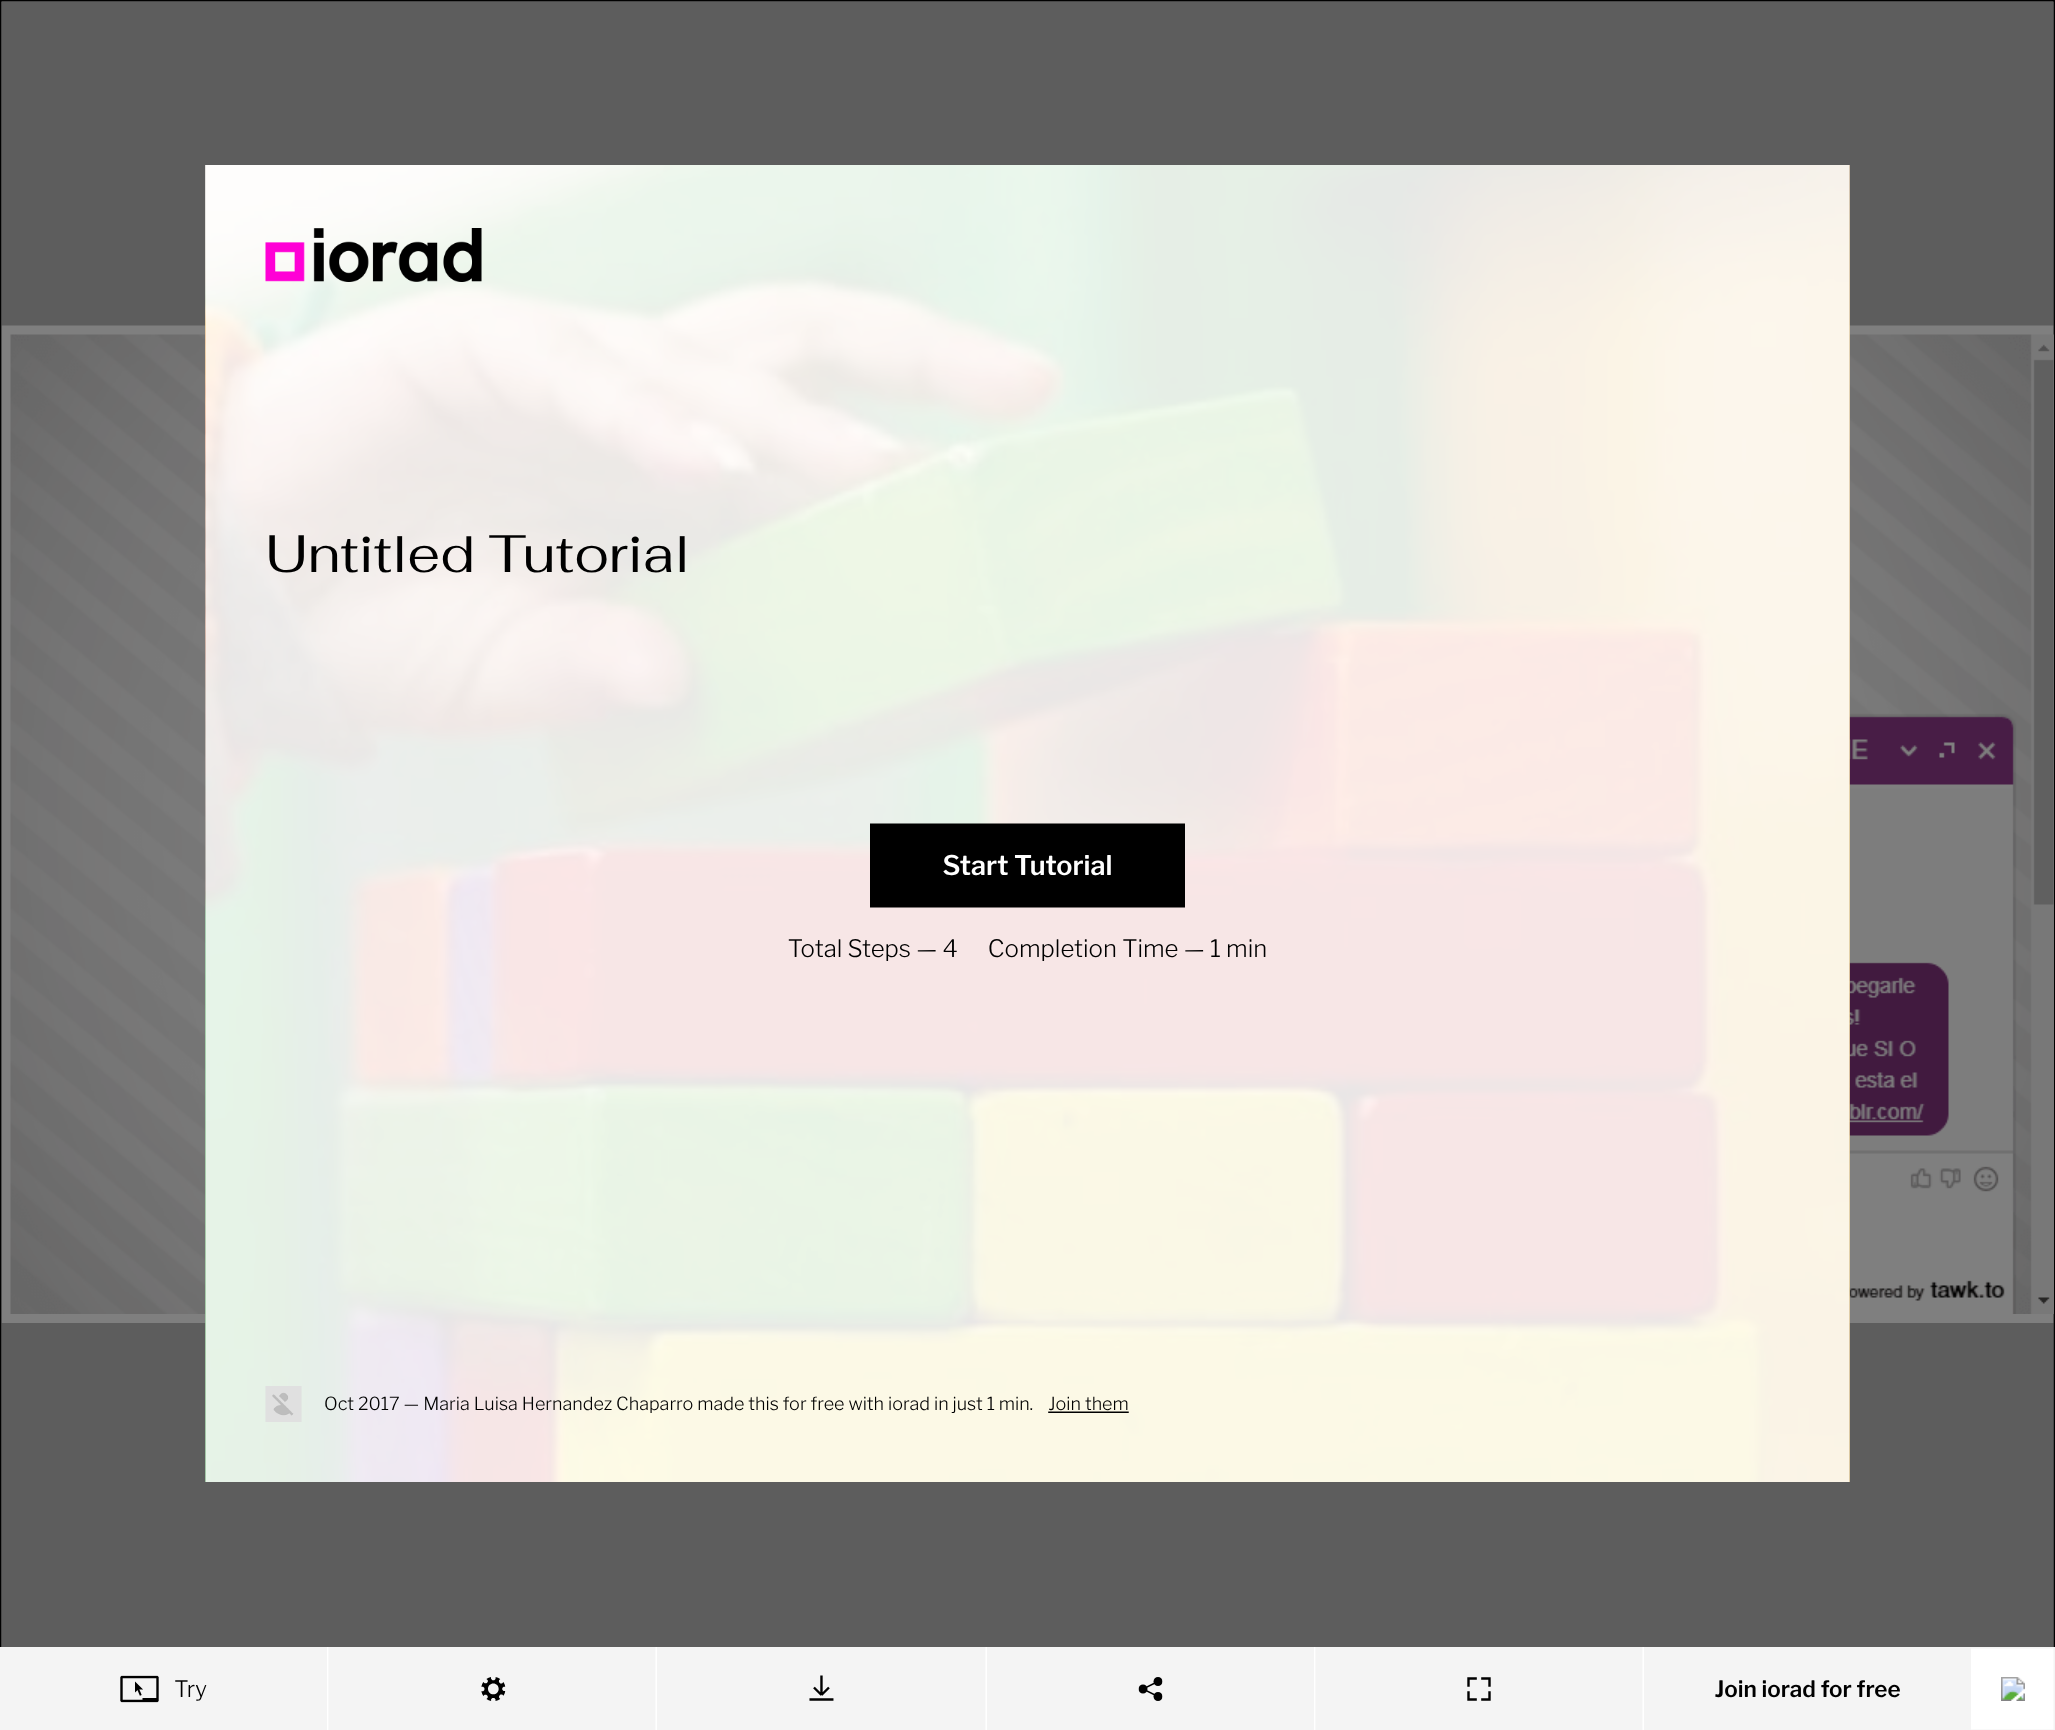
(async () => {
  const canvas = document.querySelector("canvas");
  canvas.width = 2055;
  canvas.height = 1730;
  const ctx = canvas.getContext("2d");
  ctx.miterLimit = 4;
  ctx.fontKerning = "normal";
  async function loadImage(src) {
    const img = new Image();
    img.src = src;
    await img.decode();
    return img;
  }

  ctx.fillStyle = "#ffffff";
  ctx.fillRect(0, 0, 2055, 1730);
  ctx.drawImage(await loadImage("img/1.png"), 0, 0, 2055, 1730);
})();
